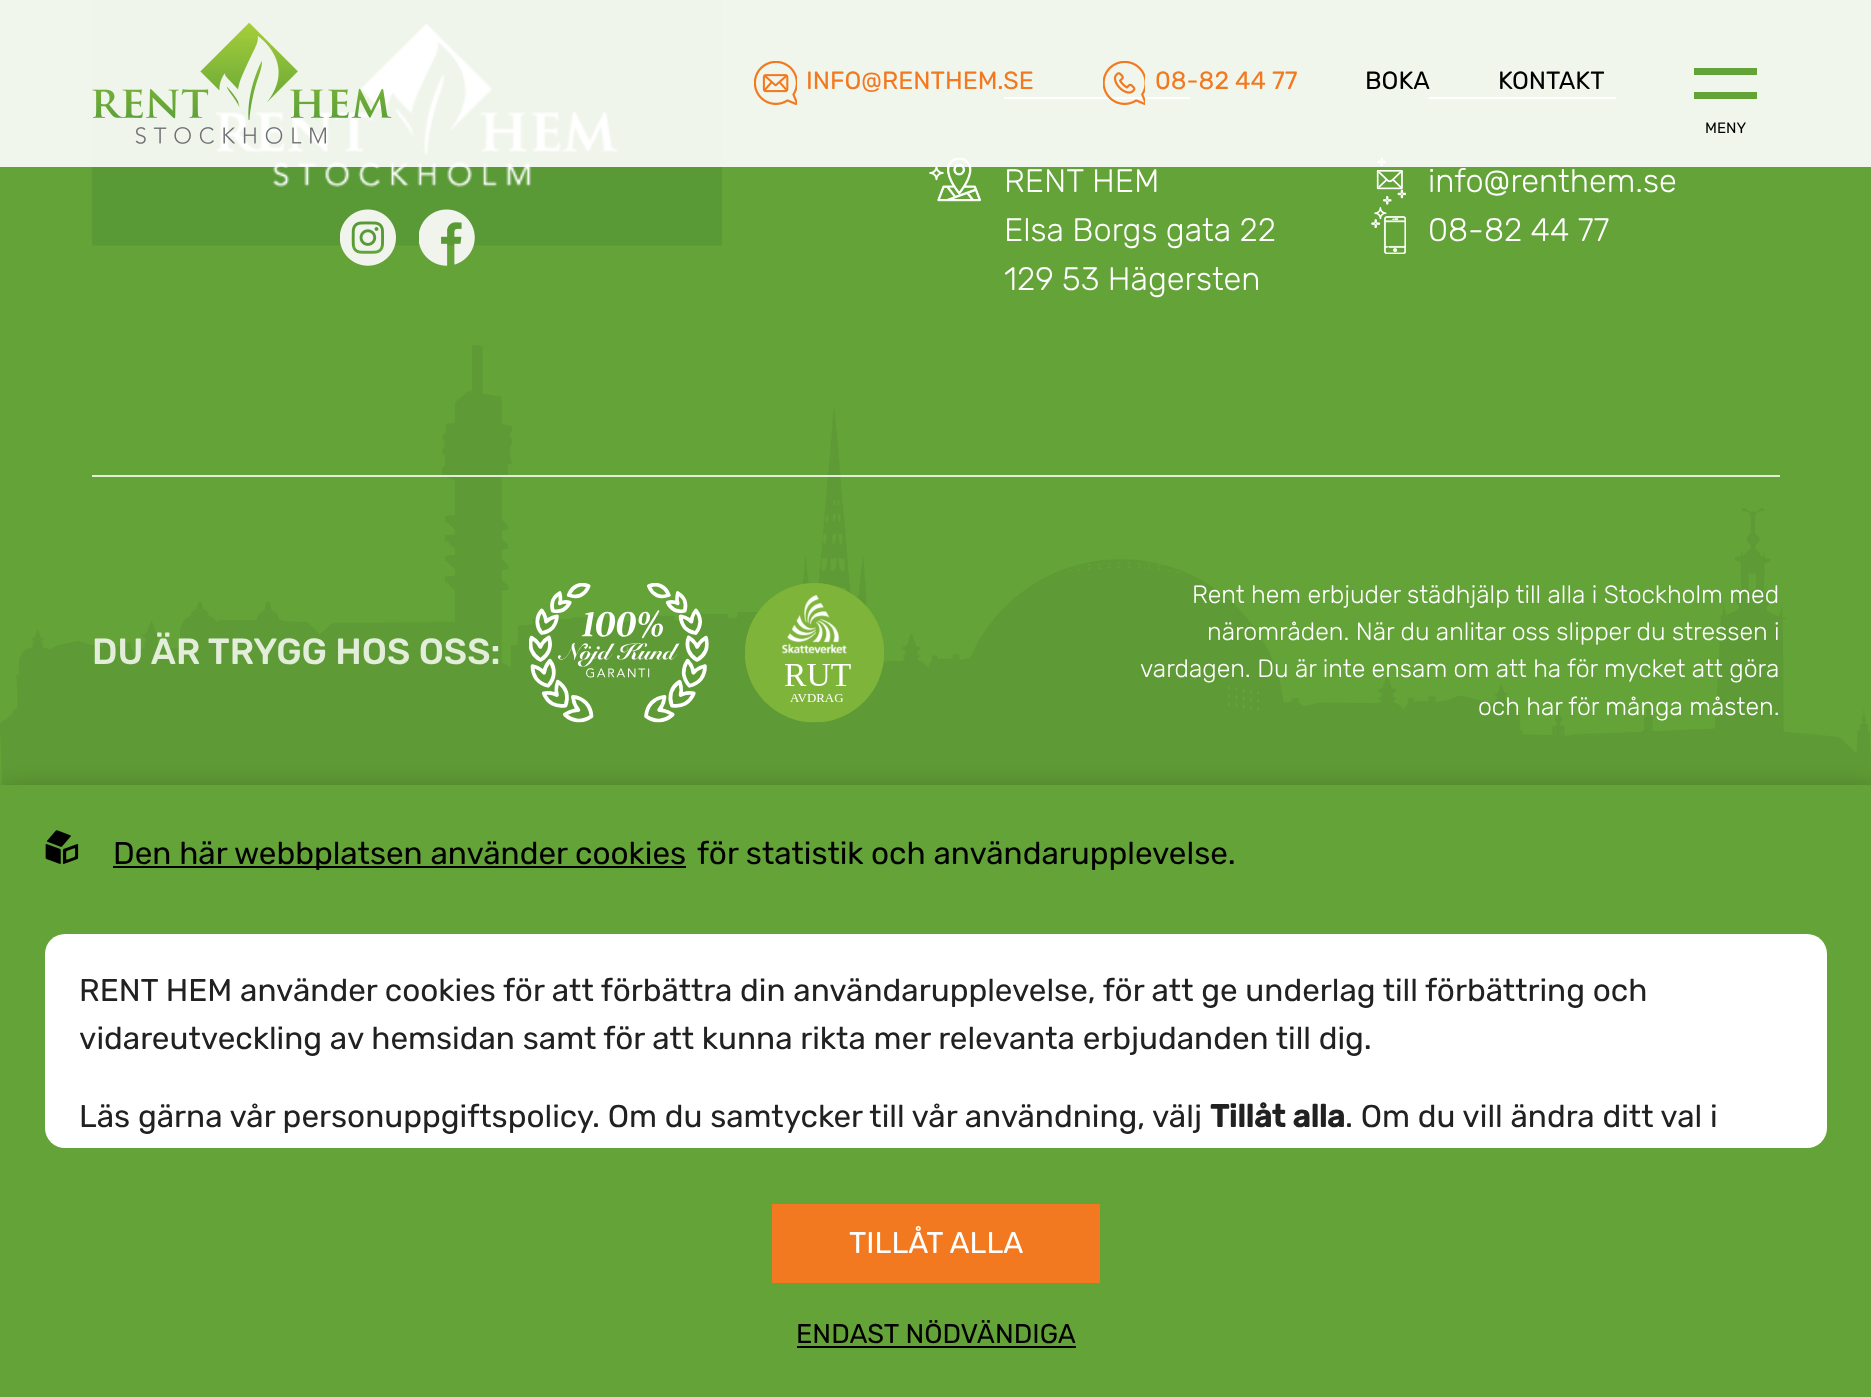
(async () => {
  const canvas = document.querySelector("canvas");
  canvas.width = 1871;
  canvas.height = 1397;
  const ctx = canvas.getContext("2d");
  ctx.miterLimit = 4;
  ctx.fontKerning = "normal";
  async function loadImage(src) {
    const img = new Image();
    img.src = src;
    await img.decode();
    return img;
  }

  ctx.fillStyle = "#63a338";
  ctx.fillRect(0, 0, 1871, 1397);
  ctx.drawImage(await loadImage("img/4.png"), 92, 0, 630, 246);
  ctx.fillStyle = "#ffffff";
  ctx.fillRect(1004, 97, 186, 2);
  ctx.drawImage(await loadImage("img/7.png"), 929, 158, 52, 44);
  ctx.fillRect(1429, 97, 187, 2);
  ctx.drawImage(await loadImage("img/8.png"), 1376, 158, 30, 47);
  ctx.fillStyle = "rgba(255, 255, 255, 0.9)";
  ctx.fillRect(0, 0, 1871, 167);
  ctx.drawImage(await loadImage("img/1.png"), 92, 23, 300, 121);
  ctx.drawImage(await loadImage("img/2.png"), 754, 61, 43, 44);
  ctx.drawImage(await loadImage("img/3.png"), 1103, 61, 42, 44);
  ctx.fillStyle = "#63a338";
  ctx.fillRect(1694, 68, 63, 7);
  ctx.fillRect(1694, 92, 63, 7);
  ctx.drawImage(await loadImage("img/5.png"), 340, 209, 56, 57);
  ctx.drawImage(await loadImage("img/6.png"), 419, 209, 56, 57);
  ctx.drawImage(await loadImage("img/9.png"), 1371, 207, 35, 47);
  ctx.drawImage(await loadImage("img/12.png"), 0, 345, 1871, 440);
  ctx.fillStyle = "#e2eeda";
  ctx.fillRect(92, 475, 1688, 2);
  ctx.drawImage(await loadImage("img/10.png"), 529, 583, 180, 140);
  ctx.drawImage(await loadImage("img/11.png"), 745, 583, 139, 140);
  ctx.fillStyle = "rgba(0, 0, 0, 0.25)";
  ctx.filter = "blur(11px)";
  ctx.beginPath();
  ctx.rect(5, 790, 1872, 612);
  ctx.fill();
  ctx.filter = "none";
  ctx.fillStyle = "#63a338";
  ctx.fillRect(0, 785, 1871, 612);
  ctx.drawImage(await loadImage("img/13.png"), 45, 830, 34, 34);
  ctx.fillStyle = "#000000";
  ctx.fillRect(113, 866, 573, 2);
  ctx.fillStyle = "#ffffff";
  ctx.beginPath();
  ctx.roundRect(45, 934, 1782, 214, 20);
  ctx.fill();
  ctx.fillStyle = "#f37920";
  ctx.fillRect(772, 1204, 328, 79);
  ctx.fillStyle = "#000000";
  ctx.fillRect(797, 1346, 279, 2);
  ctx.font = "24.85px Rubik";
  ctx.fillStyle = "#f37920";
  ctx.fillText("INFO@RENTHEM.SE", 806, 89);
  ctx.fillText("08-82 44 77", 1155, 89);
  ctx.fillStyle = "#000000";
  ctx.fillText("BOKA", 1365, 89);
  ctx.fillText("KONTAKT", 1498, 89);
  ctx.font = "15px Rubik";
  ctx.fillText("MENY", 1705, 133);
  ctx.font = "300 32.5px Rubik";
  ctx.fillStyle = "#ffffff";
  for (const [text, x, y] of [
    ["RENT HEM", 1004, 192],
    ["Elsa Borgs gata 22", 1004, 241],
    ["129 53 Hägersten", 1004, 290],
    ["info@renthem.se", 1428, 192],
    ["08-82 44 77", 1428, 241],
  ]) {
    ctx.fillText(text, x, y);
  }
  ctx.font = "500 36.3px Rubik";
  ctx.fillStyle = "#e2eeda";
  ctx.fillText("DU ÄR TRYGG HOS OSS:", 92, 664);
  ctx.font = "300 24.85px Rubik";
  ctx.fillStyle = "#ffffff";
  for (const [text, x, y] of [
    ["Rent hem erbjuder städhjälp till alla i Stockholm med", 1192, 603],
    ["närområden. När du anlitar oss slipper du stressen i", 1207, 640],
    ["vardagen. Du är inte ensam om att ha för mycket att göra", 1140, 677],
    ["och har för många måsten.", 1478, 715],
  ]) {
    ctx.fillText(text, x, y);
  }
  ctx.font = "31.5px Rubik";
  ctx.fillStyle = "#000000";
  ctx.fillText("Den här webbplatsen använder cookies", 113, 864);
  ctx.fillText("för statistik och användarupplevelse.", 697, 864);
  ctx.fillStyle = "#212121";
  for (const [text, x, y] of [
    ["RENT HEM använder cookies för att förbättra din användarupplevelse, för att ge underlag till förbättring och", 79, 1001],
    ["vidareutveckling av hemsidan samt för att kunna rikta mer relevanta erbjudanden till dig.", 79, 1049],
    ["Läs gärna vår personuppgiftspolicy", 79, 1127],
    [". Om du samtycker till vår användning, välj", 592, 1127],
  ]) {
    ctx.fillText(text, x, y);
  }
  ctx.font = "bold 31.5px Rubik";
  ctx.fillText("Tillåt alla", 1210, 1127);
  ctx.font = "31.5px Rubik";
  ctx.fillText(". Om du vill ändra ditt val i", 1345, 1127);
  ctx.font = "30px Rubik";
  ctx.fillStyle = "#ffffff";
  ctx.fillText("TILLÅT ALLA", 849, 1253);
  ctx.font = "27px Rubik";
  ctx.fillStyle = "#000000";
  ctx.fillText("ENDAST NÖDVÄNDIGA", 796, 1343);
})();
